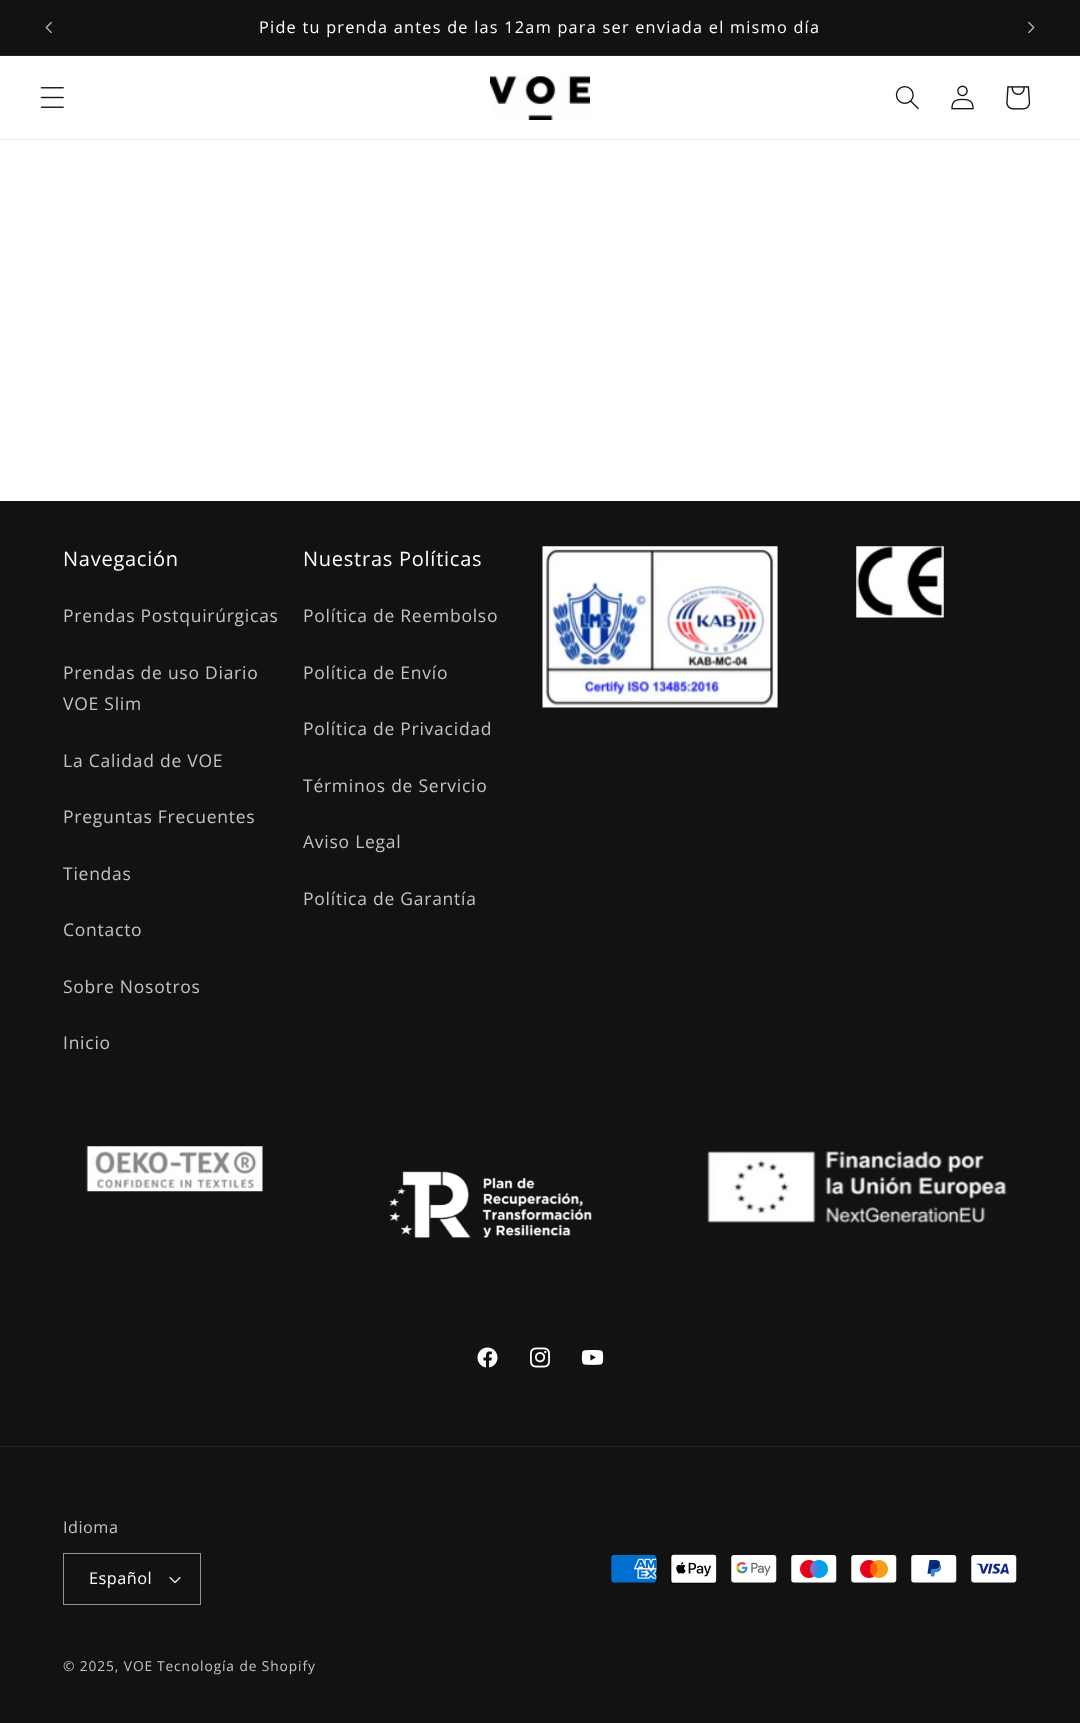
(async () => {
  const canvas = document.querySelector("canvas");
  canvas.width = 1080;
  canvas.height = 1723;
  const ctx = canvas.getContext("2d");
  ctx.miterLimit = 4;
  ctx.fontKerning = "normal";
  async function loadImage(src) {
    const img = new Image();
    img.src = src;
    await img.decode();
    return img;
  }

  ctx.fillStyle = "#ffffff";
  ctx.fillRect(0, 0, 1080, 1723);
  ctx.fillStyle = "#121212";
  ctx.fillRect(0, 0, 1080, 55);
  ctx.fillStyle = "#252525";
  ctx.fillRect(0, 55, 1080, 1);
  ctx.drawImage(await loadImage("img/1.png"), 45, 21, 7, 13);
  ctx.drawImage(await loadImage("img/2.png"), 1028, 21, 7, 13);
  ctx.fillStyle = "#ececec";
  ctx.fillRect(0, 139, 1080, 1);
  ctx.drawImage(await loadImage("img/3.png"), 40, 87, 24, 21);
  ctx.drawImage(await loadImage("img/4.png"), 490, 76, 100, 44);
  ctx.drawImage(await loadImage("img/5.png"), 895, 86, 24, 24);
  ctx.drawImage(await loadImage("img/6.png"), 951, 85, 23, 25);
  ctx.drawImage(await loadImage("img/7.png"), 1006, 86, 25, 24);
  ctx.fillStyle = "#121212";
  ctx.fillRect(0, 501, 1080, 1222);
  ctx.drawImage(await loadImage("img/8.png"), 542, 546, 236, 162);
  ctx.drawImage(await loadImage("img/9.png"), 856, 546, 88, 72);
  ctx.drawImage(await loadImage("img/10.png"), 86, 1146, 177, 46);
  ctx.drawImage(await loadImage("img/11.png"), 389, 1171, 203, 67);
  ctx.drawImage(await loadImage("img/12.png"), 707, 1151, 300, 72);
  ctx.drawImage(await loadImage("img/13.png"), 477, 1347, 21, 21);
  ctx.drawImage(await loadImage("img/14.png"), 530, 1347, 20, 21);
  ctx.drawImage(await loadImage("img/15.png"), 581, 1350, 23, 15);
  ctx.fillStyle = "#252525";
  ctx.fillRect(0, 1446, 1080, 1);
  ctx.drawImage(await loadImage("img/16.png"), 169, 1577, 12, 6);
  ctx.strokeStyle = "#949494";
  ctx.strokeRect(63.5, 1553.5, 137, 51);
  ctx.drawImage(await loadImage("img/17.png"), 611, 1555, 46, 28);
  ctx.drawImage(await loadImage("img/18.png"), 670, 1554, 47, 30);
  ctx.drawImage(await loadImage("img/19.png"), 731, 1555, 46, 28);
  ctx.drawImage(await loadImage("img/20.png"), 791, 1555, 46, 28);
  ctx.drawImage(await loadImage("img/21.png"), 851, 1555, 46, 28);
  ctx.drawImage(await loadImage("img/22.png"), 911, 1555, 46, 28);
  ctx.drawImage(await loadImage("img/23.png"), 971, 1555, 46, 28);
  ctx.letterSpacing = "1.25px";
  ctx.font = "16.25px Open Sans";
  ctx.fillStyle = "#ffffff";
  ctx.fillText("Pide tu prenda antes de las 12am para ser enviada el mismo día", 259, 33);
  ctx.letterSpacing = "0.75px";
  ctx.font = "20px Open Sans";
  ctx.fillText("Navegación", 63, 566);
  ctx.font = "17.5px Open Sans";
  ctx.fillStyle = "#c4c4c4";
  for (const [text, x, y] of [
    ["Prendas Postquirúrgicas", 63, 622],
    ["Prendas de uso Diario", 63, 679],
    ["VOE Slim", 63, 710],
    ["La Calidad de VOE", 63, 767],
    ["Preguntas Frecuentes", 63, 823],
    ["Tiendas", 63, 880],
    ["Contacto", 63, 936],
    ["Sobre Nosotros", 63, 993],
    ["Inicio", 63, 1049],
  ]) {
    ctx.fillText(text, x, y);
  }
  ctx.font = "20px Open Sans";
  ctx.fillStyle = "#ffffff";
  ctx.fillText("Nuestras Políticas", 303, 566);
  ctx.font = "17.5px Open Sans";
  ctx.fillStyle = "#c4c4c4";
  for (const [text, x, y] of [
    ["Política de Reembolso", 303, 622],
    ["Política de Envío", 303, 679],
    ["Política de Privacidad", 303, 735],
    ["Términos de Servicio", 303, 792],
    ["Aviso Legal", 303, 848],
    ["Política de Garantía", 303, 905],
  ]) {
    ctx.fillText(text, x, y);
  }
  ctx.letterSpacing = "0.5px";
  ctx.font = "16.25px Open Sans";
  ctx.fillText("Idioma", 63, 1533);
  ctx.fillStyle = "#ffffff";
  ctx.fillText("Español", 89, 1584);
  ctx.letterSpacing = "0.9px";
  ctx.font = "13.75px Open Sans";
  ctx.fillStyle = "#c4c4c4";
  ctx.fillText("© 2025, VOE", 63, 1671);
  ctx.fillText("Tecnología de Shopify", 157, 1671);
})();
